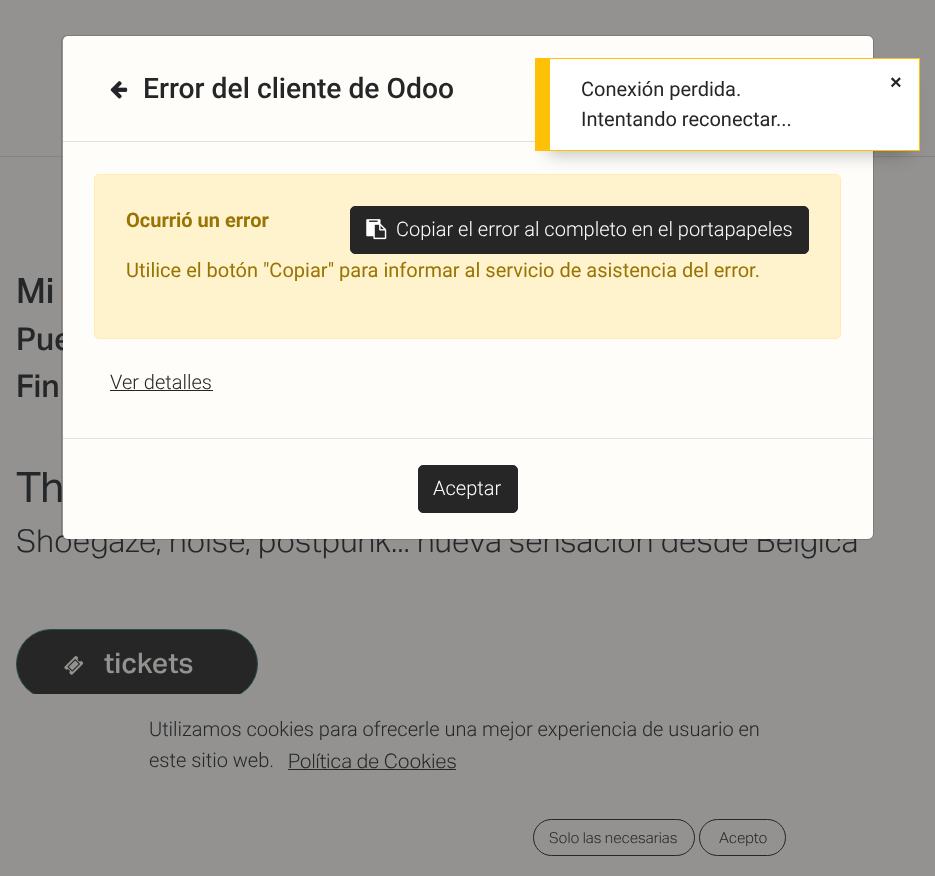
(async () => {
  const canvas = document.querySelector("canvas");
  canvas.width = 935;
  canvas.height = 876;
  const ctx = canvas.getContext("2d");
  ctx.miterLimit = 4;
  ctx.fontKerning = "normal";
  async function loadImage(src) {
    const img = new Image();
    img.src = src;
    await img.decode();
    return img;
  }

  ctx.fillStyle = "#939290";
  ctx.fillRect(0, 0, 935, 876);
  ctx.fillStyle = "#828486";
  ctx.fillRect(0, 156, 935, 1);
  ctx.fillStyle = "#262626";
  ctx.beginPath();
  ctx.roundRect(16.5, 629.5, 241, 69, 34.5);
  ctx.fill();
  ctx.strokeStyle = "#274a4c";
  ctx.stroke();
  ctx.drawImage(await loadImage("img/3.png"), 64, 656, 20, 19);
  ctx.fillStyle = "#939290";
  ctx.fillRect(33, 694, 208, 5);
  ctx.fillStyle = "#262626";
  ctx.fillRect(288, 769, 168, 1);
  ctx.beginPath();
  ctx.roundRect(533.5, 819.5, 161, 36, 18);
  ctx.strokeStyle = "#262626";
  ctx.stroke();
  ctx.beginPath();
  ctx.roundRect(699.5, 819.5, 86, 36, 18);
  ctx.stroke();
  ctx.font = "500 35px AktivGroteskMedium";
  ctx.fillStyle = "#242628";
  ctx.fillText("Mi", 16, 303);
  ctx.font = "500 31.6px AktivGroteskMedium";
  ctx.fillText("Pue", 16, 350);
  ctx.fillText("Fin", 16, 397);
  ctx.letterSpacing = "-1px";
  ctx.font = "42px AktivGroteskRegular";
  ctx.fillText("Th", 16, 502);
  ctx.letterSpacing = "0px";
  ctx.font = "300 31.6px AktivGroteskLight";
  ctx.fillText("Shoegaze, noise, postpunk... nueva sensación desde Bélgica", 16, 552);
  ctx.fillStyle = "#fffdf9";
  ctx.beginPath();
  ctx.roundRect(63, 36, 810, 503, 5);
  ctx.fill();
  ctx.beginPath();
  ctx.roundRect(61.5, 35.5, 812, 504, 5.5);
  ctx.strokeStyle = "rgba(38, 38, 38, 0.2)";
  ctx.stroke();
  ctx.fillStyle = "#fff3cd";
  ctx.beginPath();
  ctx.roundRect(94.5, 174.5, 746, 164, 4.5);
  ctx.fill();
  ctx.strokeStyle = "#ffecb5";
  ctx.stroke();
  ctx.fillStyle = "#dee2e6";
  ctx.fillRect(63, 141, 472, 1);
  ctx.fillStyle = "rgba(0, 0, 0, 0.25)";
  ctx.filter = "blur(9px)";
  ctx.beginPath();
  ctx.rect(548, 85, 360, 69);
  ctx.fill();
  ctx.filter = "none";
  ctx.fillStyle = "#ffffff";
  ctx.fillRect(550, 59, 369, 91);
  ctx.font = "bold 20px Liberation Sans";
  ctx.fillStyle = "#242628";
  ctx.fillText("×", 890, 89);
  ctx.font = "20px Roboto";
  ctx.fillText("Intentando reconectar...", 581, 126);
  ctx.fillText("Conexión perdida.", 581, 96);
  for (const [x, y, w, h, color] of [
    [535, 58, 15, 93, "#ffc107"],
    [550, 58, 370, 1, "#ffc107"],
    [919, 58, 1, 93, "#ffc107"],
    [550, 150, 370, 1, "#ffc107"],
  ]) {
    ctx.fillStyle = color;
    ctx.fillRect(x, y, w, h);
  }
  ctx.fillStyle = "#262626";
  ctx.beginPath();
  ctx.roundRect(350.5, 206.5, 458, 47, 4.5);
  ctx.fill();
  ctx.strokeStyle = "#262626";
  ctx.stroke();
  ctx.font = "300 20px Roboto";
  ctx.fillStyle = "#ffffff";
  ctx.fillText("Copiar el error al completo en el portapapeles", 396, 236);
  ctx.drawImage(await loadImage("img/2.png"), 366, 219, 21, 21);
  ctx.font = "20px Roboto";
  ctx.fillStyle = "#997404";
  ctx.fillText("Utilice el botón \"Copiar\" para informar al servicio de asistencia del error.", 126, 277);
  ctx.font = "bold 20px Roboto";
  ctx.fillText("Ocurrió un error", 126, 227);
  ctx.font = "300 20px Roboto";
  ctx.fillStyle = "#242628";
  ctx.fillText("Ver detalles", 110, 389);
  ctx.fillStyle = "#262626";
  ctx.fillRect(110, 390, 103, 1);
  ctx.font = "500 28.25px Roboto";
  ctx.fillStyle = "#242628";
  ctx.fillText("Error del cliente de Odoo", 143, 98);
  ctx.fillStyle = "#262626";
  ctx.beginPath();
  ctx.roundRect(418.5, 465.5, 99, 47, 4.5);
  ctx.fill();
  ctx.stroke();
  ctx.font = "300 20px Roboto";
  ctx.fillStyle = "#ffffff";
  ctx.fillText("Aceptar", 433, 495);
  ctx.fillStyle = "#dee2e6";
  ctx.fillRect(63, 438, 810, 1);
  ctx.drawImage(await loadImage("img/1.png"), 110, 81, 18, 18);
  ctx.font = "500 28.25px AktivGroteskMedium";
  ctx.fillStyle = "#939290";
  ctx.fillText("tickets", 104, 673);
  ctx.font = "300 20px Roboto";
  ctx.fillStyle = "#242628";
  ctx.fillText("Utilizamos cookies para ofrecerle una mejor experiencia de usuario en", 149, 736);
  ctx.fillText("este sitio web.", 149, 767);
  ctx.font = "300 20px AktivGroteskLight";
  ctx.fillText("Política de Cookies", 288, 768);
  ctx.font = "300 15px AktivGroteskLight";
  ctx.fillText("Solo las necesarias", 549, 843);
  ctx.fillText("Acepto", 719, 843);
})();
